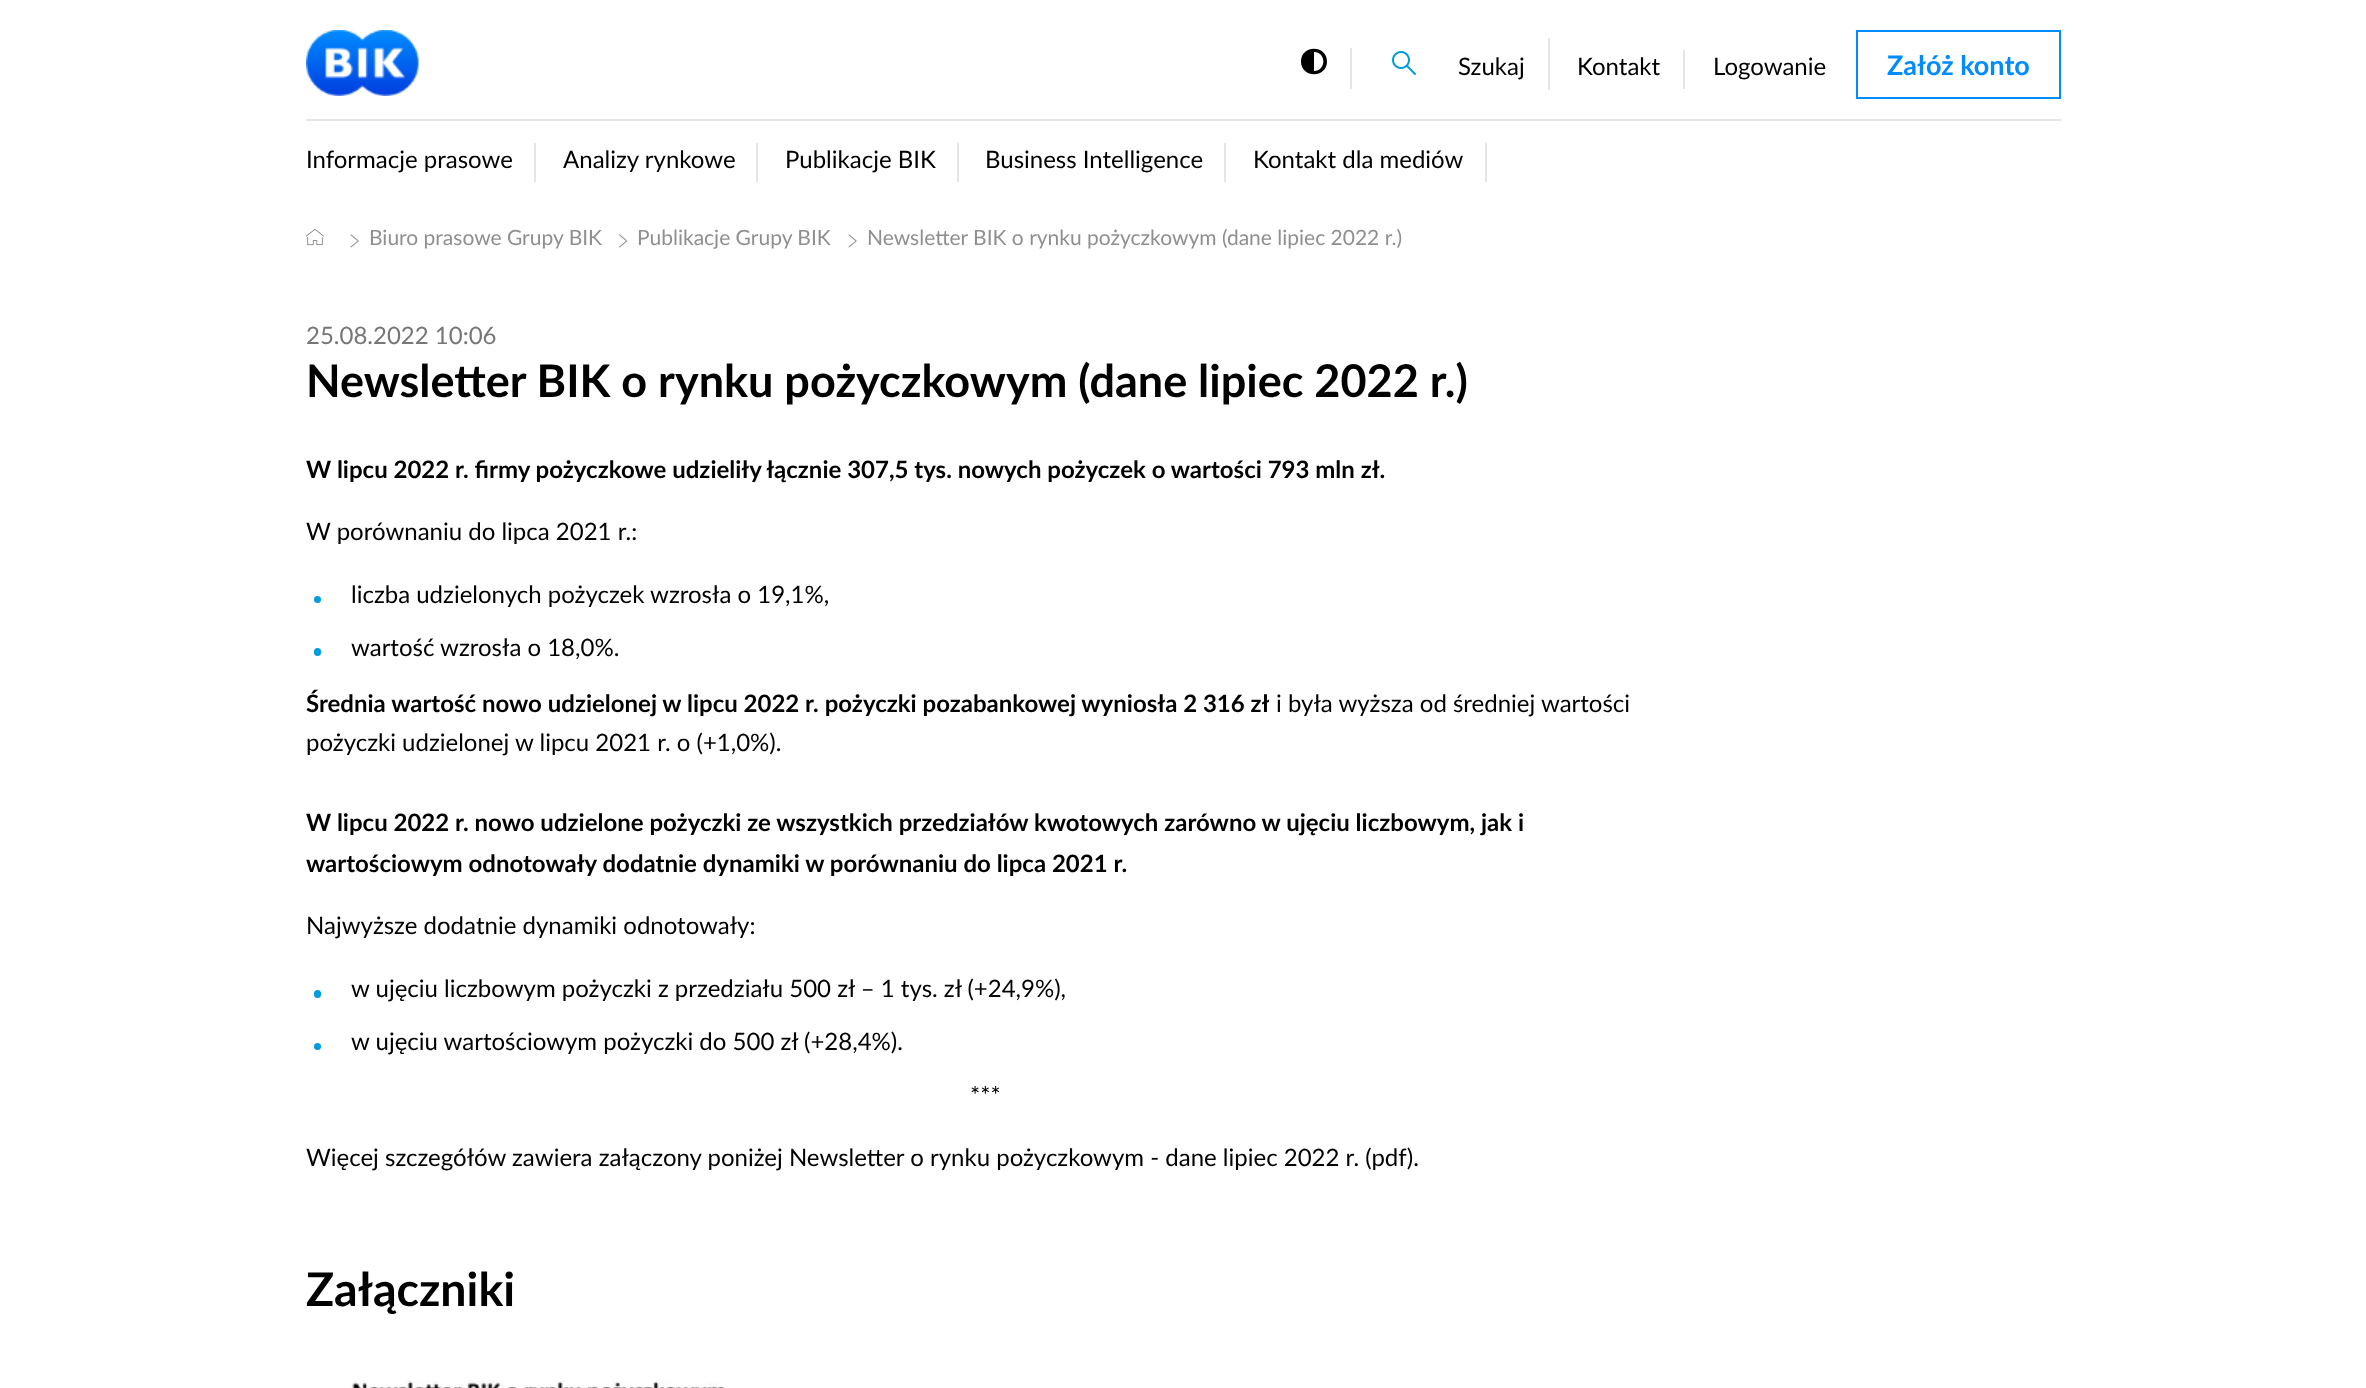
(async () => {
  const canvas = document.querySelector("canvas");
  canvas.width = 2366;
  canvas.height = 1388;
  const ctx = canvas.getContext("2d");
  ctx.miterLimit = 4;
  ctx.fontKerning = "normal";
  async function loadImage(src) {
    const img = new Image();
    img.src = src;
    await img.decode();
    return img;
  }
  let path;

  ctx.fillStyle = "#ffffff";
  ctx.fillRect(0, 0, 2366, 1388);
  ctx.drawImage(await loadImage("img/1.png"), 306, 30, 113, 66);
  ctx.fillStyle = "#e5e5e5";
  ctx.fillRect(1350, 48, 2, 41);
  ctx.fillStyle = "#000000";
  path = new Path2D("M1301 61.5C1301 78.5 1327 78.5 1327 61.5C1327 44.5 1301 44.5 1301 61.5ZM1314 71V52C1326.5 52 1326.5 71 1314 71Z");
  ctx.fill(path);
  ctx.fillStyle = "#e5e5e5";
  ctx.fillRect(1548, 38, 2, 52);
  ctx.drawImage(await loadImage("img/2.png"), 1392, 51, 24, 24);
  ctx.fillRect(1683, 50, 2, 39);
  ctx.strokeStyle = "#008cff";
  ctx.lineWidth = 2;
  ctx.strokeRect(1857, 31, 203, 67);
  for (const [x, y, w, h, color] of [
    [306, 119, 1755, 2, "#e5e5e5"],
    [534, 143, 2, 39, "#e5e5e5"],
    [756, 143, 2, 39, "#e5e5e5"],
    [957, 143, 2, 39, "#e5e5e5"],
    [1224, 143, 2, 39, "#e5e5e5"],
    [1485, 143, 2, 39, "#e5e5e5"],
  ]) {
    ctx.fillStyle = color;
    ctx.fillRect(x, y, w, h);
  }
  ctx.drawImage(await loadImage("img/3.png"), 306, 228, 18, 18);
  ctx.drawImage(await loadImage("img/4.png"), 350, 234, 9, 14);
  ctx.drawImage(await loadImage("img/5.png"), 619, 234, 9, 14);
  ctx.drawImage(await loadImage("img/4.png"), 848, 234, 9, 14);
  ctx.fillStyle = "#009ddc";
  ctx.beginPath();
  ctx.arc(317.5, 599.5, 3.5, 0, Math.PI * 2);
  ctx.fill();
  ctx.beginPath();
  ctx.roundRect(314, 648, 7, 8, 3.5);
  ctx.fill();
  ctx.beginPath();
  ctx.roundRect(314, 990, 7, 8, 3.5);
  ctx.fill();
  ctx.beginPath();
  ctx.arc(317.5, 1046.5, 3.5, 0, Math.PI * 2);
  ctx.fill();
  ctx.drawImage(await loadImage("img/6.png"), 350, 1380, 375, 8);
  ctx.font = "24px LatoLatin";
  ctx.fillStyle = "#000000";
  for (const [text, x, y] of [
    ["Szukaj", 1458, 75],
    ["Kontakt", 1577, 75],
    ["Logowanie", 1713, 75],
  ]) {
    ctx.fillText(text, x, y);
  }
  ctx.font = "bold 27px Lato";
  ctx.fillStyle = "#008cff";
  ctx.fillText("Załóż konto", 1887, 75);
  ctx.font = "24px LatoLatin";
  ctx.fillStyle = "#000000";
  for (const [text, x, y] of [
    ["Informacje prasowe", 306, 168],
    ["Analizy rynkowe", 563, 168],
    ["Publikacje BIK", 785, 168],
    ["Business Intelligence", 985, 168],
    ["Kontakt dla mediów", 1253, 168],
  ]) {
    ctx.fillText(text, x, y);
  }
  ctx.font = "21px LatoLatin";
  ctx.fillStyle = "#8f8f8f";
  for (const [text, x, y] of [
    ["Biuro prasowe Grupy BIK", 369, 245],
    ["Publikacje Grupy BIK", 637, 245],
    ["Newsletter BIK o rynku pożyczkowym (dane lipiec 2022 r.)", 867, 245],
  ]) {
    ctx.fillText(text, x, y);
  }
  ctx.font = "24px LatoLatin";
  ctx.fillStyle = "#767676";
  ctx.fillText("25.08.2022 10:06", 306, 344);
  ctx.font = "bold 45px Lato";
  ctx.fillStyle = "#000000";
  ctx.fillText("Newsletter BIK o rynku pożyczkowym (dane lipiec 2022 r.)", 306, 397);
  ctx.font = "bold 24px Lato";
  ctx.fillText("W lipcu 2022 r. firmy pożyczkowe udzieliły łącznie 307,5 tys. nowych pożyczek o wartości 793 mln zł.", 306, 478);
  ctx.font = "24px LatoLatin";
  for (const [text, x, y] of [
    ["W porównaniu do lipca 2021 r.:", 306, 540],
    ["liczba udzielonych pożyczek wzrosła o 19,1%,", 351, 603],
    ["wartość wzrosła o 18,0%.", 351, 656],
  ]) {
    ctx.fillText(text, x, y);
  }
  ctx.font = "bold 24px Lato";
  ctx.fillText("Średnia wartość nowo udzielonej w lipcu 2022 r. pożyczki pozabankowej wyniosła 2 316 zł", 306, 712);
  ctx.font = "24px LatoLatin";
  ctx.fillText("i była wyższa od średniej wartości", 1276, 712);
  ctx.fillText("pożyczki udzielonej w lipcu 2021 r. o (+1,0%).", 306, 751);
  ctx.font = "bold 24px Lato";
  ctx.fillText("W lipcu 2022 r. nowo udzielone pożyczki ze wszystkich przedziałów kwotowych zarówno w ujęciu liczbowym, jak i", 306, 831);
  ctx.fillText("wartościowym odnotowały dodatnie dynamiki w porównaniu do lipca 2021 r.", 306, 872);
  ctx.font = "24px LatoLatin";
  for (const [text, x, y] of [
    ["Najwyższe dodatnie dynamiki odnotowały:", 306, 934],
    ["w ujęciu liczbowym pożyczki z przedziału 500 zł – 1 tys. zł (+24,9%),", 351, 997],
    ["w ujęciu wartościowym pożyczki do 500 zł (+28,4%).", 351, 1050],
    ["***", 970, 1104],
    ["Więcej szczegółów zawiera załączony poniżej Newsletter o rynku pożyczkowym - dane lipiec 2022 r. (pdf).", 306, 1166],
  ]) {
    ctx.fillText(text, x, y);
  }
  ctx.font = "bold 46.5px Lato";
  ctx.fillText("Załączniki", 306, 1306);
})();
